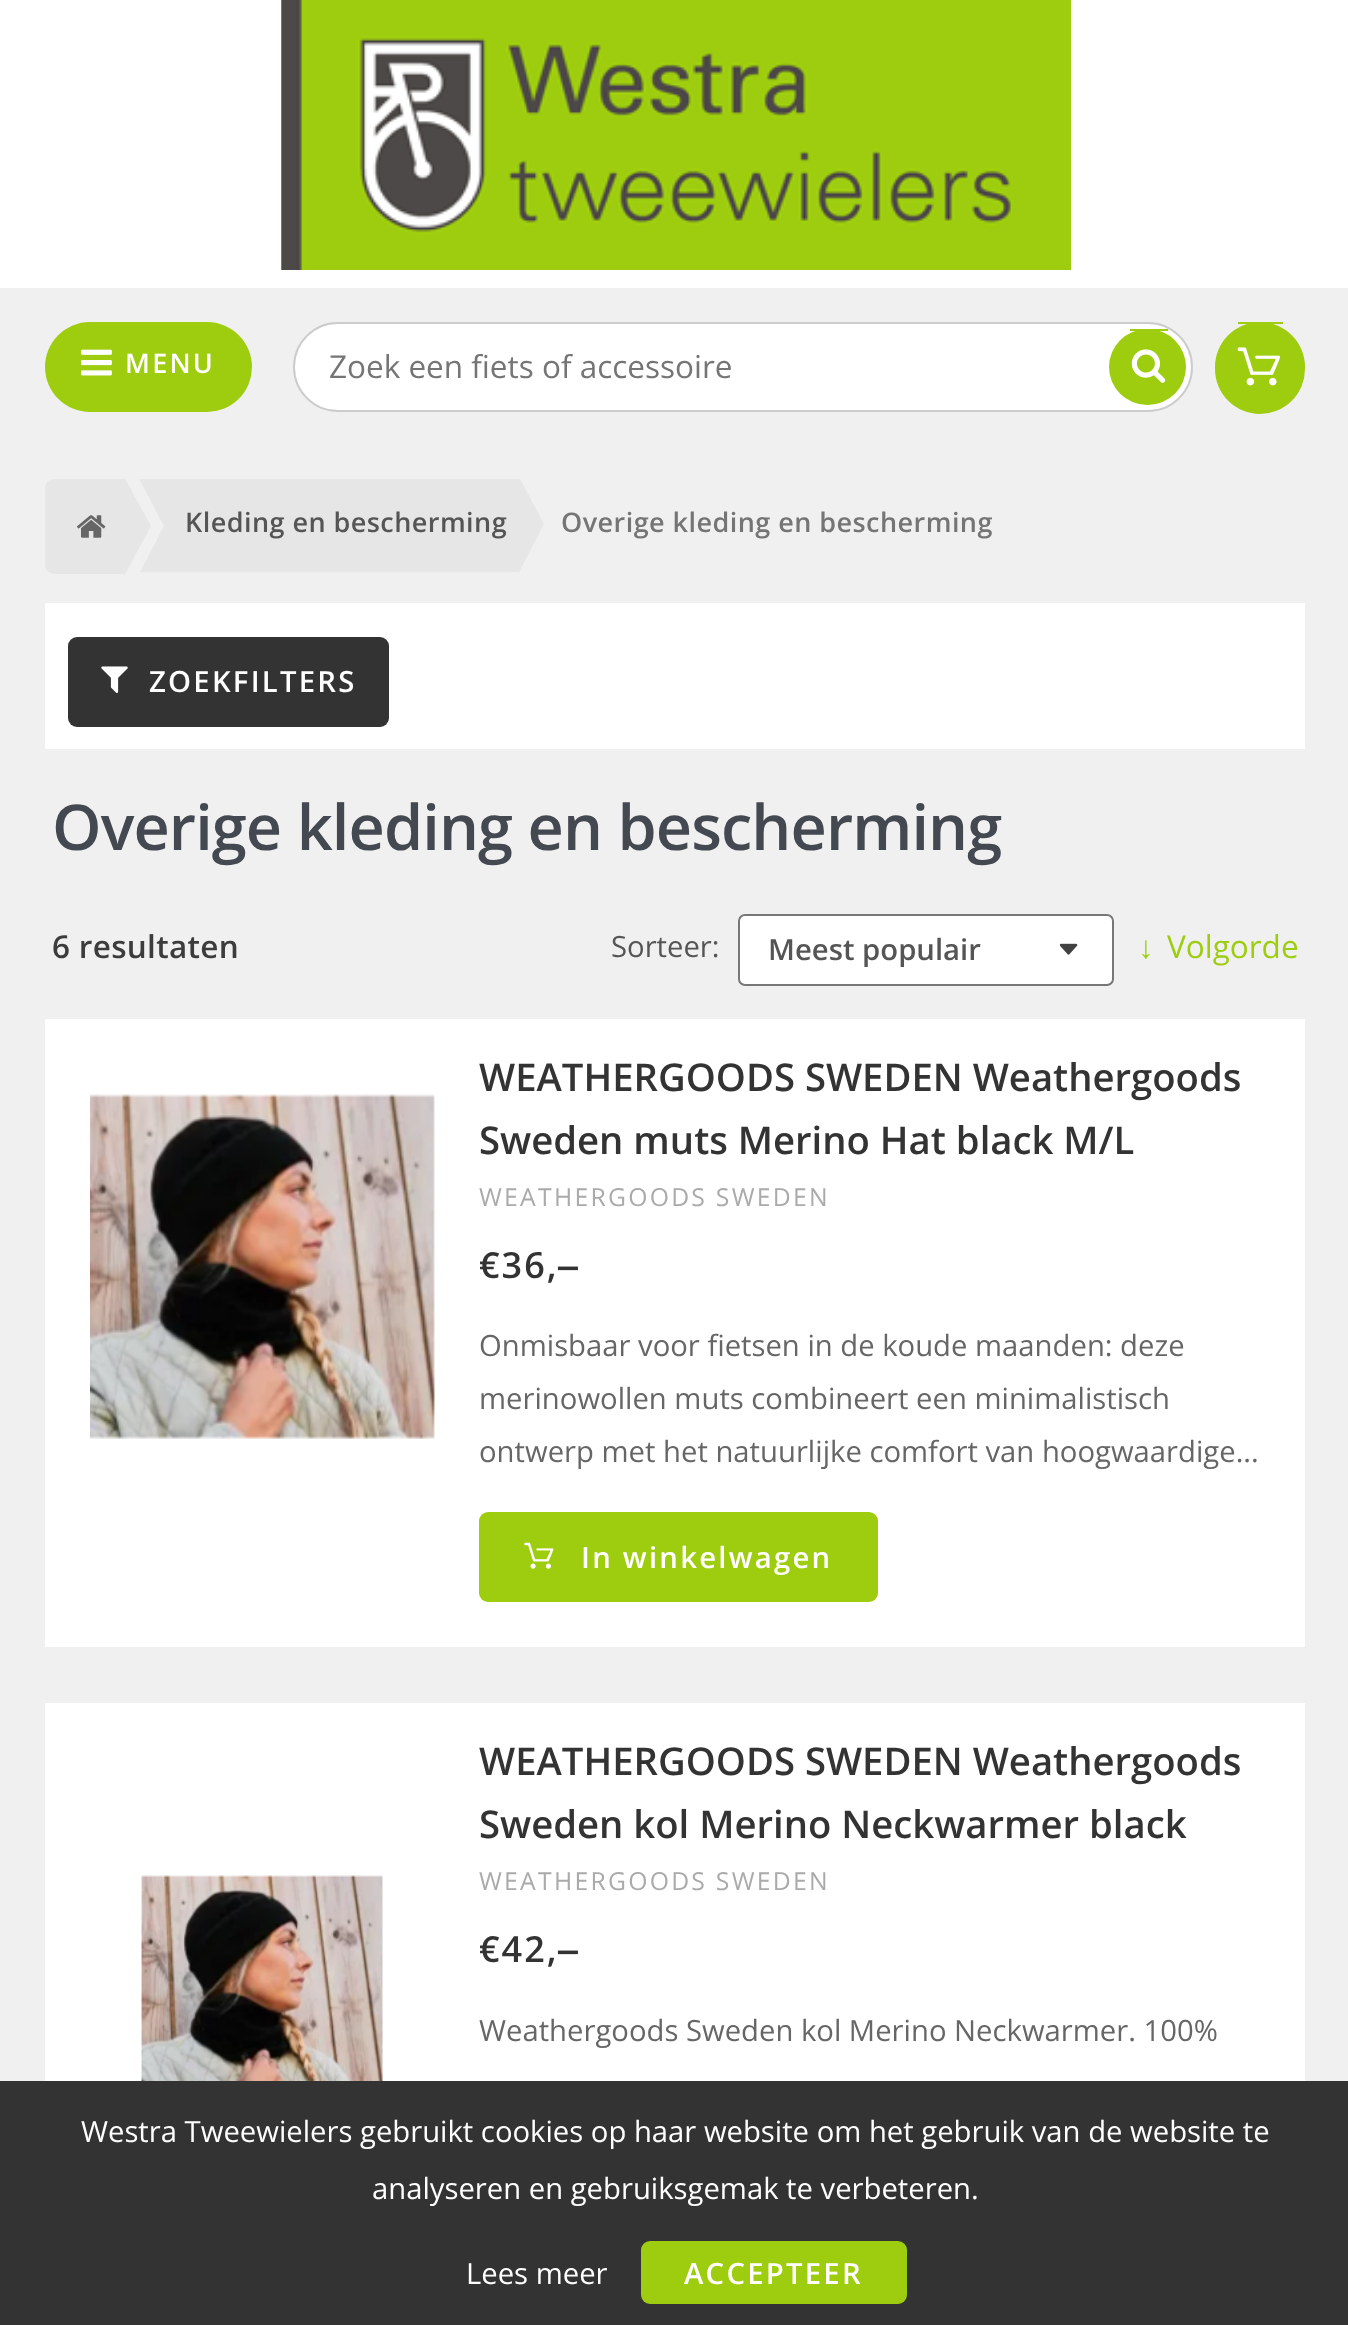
(async () => {
  const canvas = document.querySelector("canvas");
  canvas.width = 1348;
  canvas.height = 2325;
  const ctx = canvas.getContext("2d");
  ctx.miterLimit = 4;
  ctx.fontKerning = "normal";
  async function loadImage(src) {
    const img = new Image();
    img.src = src;
    await img.decode();
    return img;
  }
  let path;

  ctx.fillStyle = "#f0f0f0";
  ctx.fillRect(0, 0, 1348, 2325);
  ctx.fillStyle = "#ffffff";
  ctx.fillRect(0, 0, 1348, 288);
  ctx.drawImage(await loadImage("img/1.png"), 281, 0, 790, 270);
  ctx.fillStyle = "#9ecd0f";
  ctx.beginPath();
  ctx.roundRect(45, 322, 207, 90, 45);
  ctx.fill();
  ctx.drawImage(await loadImage("img/2.png"), 81, 349, 31, 27);
  ctx.fillStyle = "#ffffff";
  ctx.beginPath();
  ctx.roundRect(294, 323, 898, 88, 44);
  ctx.fill();
  ctx.strokeStyle = "#cccccc";
  ctx.lineWidth = 2;
  ctx.stroke();
  ctx.fillStyle = "#9ecd0f";
  ctx.beginPath();
  ctx.roundRect(1109, 329, 77, 76, 38);
  ctx.fill();
  ctx.fillRect(1130, 329, 38, 2);
  ctx.drawImage(await loadImage("img/3.png"), 1131, 349, 35, 34);
  ctx.beginPath();
  ctx.roundRect(1215, 322, 90, 92, 45);
  ctx.fill();
  ctx.fillRect(1238, 322, 45, 2);
  ctx.drawImage(await loadImage("img/4.png"), 1237, 347, 44, 39);
  ctx.fillStyle = "#e6e6e6";
  ctx.beginPath();
  ctx.roundRect(45, 479, 79, 95, [9, 0, 0, 9]);
  ctx.fill();
  ctx.fillRect(139, 479, 379, 93);
  ctx.save();
  ctx.beginPath();
  ctx.rect(45, 479, 1260, 102);
  ctx.clip();
  ctx.fillStyle = "#f0f0f0";
  path = new Path2D("M124 603V450L164 526Z");
  ctx.fill(path);
  ctx.restore();
  path = new Path2D("M124 576V477L151 526Z");
  ctx.fill(path);
  ctx.save();
  ctx.beginPath();
  ctx.rect(45, 479, 1260, 102);
  ctx.clip();
  path = new Path2D("M518 574V475L544 524Z");
  ctx.fill(path);
  ctx.restore();
  ctx.drawImage(await loadImage("img/5.png"), 77, 515, 29, 23);
  ctx.fillStyle = "#ffffff";
  ctx.fillRect(45, 603, 1260, 146);
  ctx.fillStyle = "#333333";
  ctx.beginPath();
  ctx.roundRect(68, 637, 321, 90, 9);
  ctx.fill();
  ctx.drawImage(await loadImage("img/6.png"), 101, 666, 27, 27);
  ctx.fillStyle = "#ffffff";
  ctx.beginPath();
  ctx.roundRect(738, 914, 376, 72, 7);
  ctx.fill();
  ctx.drawImage(await loadImage("img/7.png"), 1060, 943, 18, 12);
  ctx.beginPath();
  ctx.roundRect(739, 915, 374, 70, 6);
  ctx.strokeStyle = "#777777";
  ctx.stroke();
  ctx.fillRect(45, 1019, 1260, 628);
  ctx.drawImage(await loadImage("img/8.png"), 90, 1094, 345, 345);
  ctx.fillStyle = "#9ecd0f";
  ctx.beginPath();
  ctx.roundRect(479, 1512, 399, 90, 9);
  ctx.fill();
  ctx.drawImage(await loadImage("img/9.png"), 524, 1542, 30, 27);
  ctx.fillStyle = "#ffffff";
  ctx.fillRect(45, 1703, 1260, 378);
  ctx.drawImage(await loadImage("img/10.png"), 141, 1875, 242, 206);
  ctx.fillStyle = "#333333";
  ctx.fillRect(0, 2081, 1348, 244);
  ctx.fillStyle = "#9ecd0f";
  ctx.beginPath();
  ctx.roundRect(641, 2241, 266, 63, 9);
  ctx.fill();
  ctx.letterSpacing = "2.25px";
  ctx.font = "600 27px Open Sans";
  ctx.fillStyle = "#ffffff";
  ctx.fillText("MENU", 125, 373);
  ctx.letterSpacing = "0px";
  ctx.font = "31.5px Open Sans";
  ctx.fillStyle = "#757575";
  ctx.fillText("Zoek een fiets of accessoire", 329, 378);
  ctx.letterSpacing = "0.45px";
  ctx.font = "600 27px Open Sans";
  ctx.fillStyle = "#555555";
  ctx.fillText("Kleding en bescherming", 185, 532);
  ctx.fillStyle = "#757575";
  ctx.fillText("Overige kleding en bescherming", 561, 532);
  ctx.letterSpacing = "2.25px";
  ctx.font = "600 29.25px Open Sans";
  ctx.fillStyle = "#ffffff";
  ctx.fillText("ZOEKFILTERS", 149, 692);
  ctx.letterSpacing = "-0.9px";
  ctx.font = "600 63px Open Sans";
  ctx.fillStyle = "#444850";
  ctx.fillText("Overige kleding en bescherming", 52, 850);
  ctx.letterSpacing = "0.3px";
  ctx.font = "600 31.5px Open Sans";
  ctx.fillStyle = "#3c3c3c";
  ctx.fillText("6 resultaten", 52, 958);
  ctx.letterSpacing = "0px";
  ctx.font = "29.25px Open Sans";
  ctx.fillStyle = "#555555";
  ctx.fillText("Sorteer:", 611, 957);
  ctx.font = "600 29.25px Open Sans";
  ctx.fillText("Meest populair", 768, 960);
  ctx.font = "bold 31.5px Liberation Sans";
  ctx.fillStyle = "#9ecd0f";
  ctx.fillText("↓", 1138, 958);
  ctx.font = "31.5px Open Sans";
  ctx.fillText("Volgorde", 1167, 958);
  ctx.font = "600 38.25px Open Sans";
  ctx.fillStyle = "#333333";
  ctx.fillText("WEATHERGOODS SWEDEN Weathergoods", 479, 1091);
  ctx.fillText("Sweden muts Merino Hat black M/L", 479, 1154);
  ctx.letterSpacing = "2.25px";
  ctx.font = "24.75px Open Sans";
  ctx.fillStyle = "#aaaaaa";
  ctx.fillText("WEATHERGOODS SWEDEN", 479, 1206);
  ctx.letterSpacing = "2px";
  ctx.font = "600 36px Open Sans";
  ctx.fillStyle = "#333333";
  ctx.fillText("€36,", 479, 1278);
  ctx.font = "bold 36px Liberation Sans";
  ctx.fillText("‒", 558, 1278);
  ctx.letterSpacing = "0px";
  ctx.font = "29.25px Open Sans";
  ctx.fillStyle = "#666666";
  for (const [text, x, y] of [
    ["Onmisbaar voor fietsen in de koude maanden: deze", 479, 1356],
    ["merinowollen muts combineert een minimalistisch", 479, 1409],
    ["ontwerp met het natuurlijke comfort van hoogwaardige...", 479, 1462],
  ]) {
    ctx.fillText(text, x, y);
  }
  ctx.letterSpacing = "2.25px";
  ctx.font = "600 29.25px Open Sans";
  ctx.fillStyle = "#ffffff";
  ctx.fillText("In winkelwagen", 581, 1568);
  ctx.letterSpacing = "0px";
  ctx.font = "600 38.25px Open Sans";
  ctx.fillStyle = "#333333";
  ctx.fillText("WEATHERGOODS SWEDEN Weathergoods", 479, 1775);
  ctx.fillText("Sweden kol Merino Neckwarmer black", 479, 1838);
  ctx.letterSpacing = "2.25px";
  ctx.font = "24.75px Open Sans";
  ctx.fillStyle = "#aaaaaa";
  ctx.fillText("WEATHERGOODS SWEDEN", 479, 1890);
  ctx.letterSpacing = "2px";
  ctx.font = "600 36px Open Sans";
  ctx.fillStyle = "#333333";
  ctx.fillText("€42,", 479, 1962);
  ctx.font = "bold 36px Liberation Sans";
  ctx.fillText("‒", 558, 1962);
  ctx.letterSpacing = "0px";
  ctx.font = "29.25px Open Sans";
  ctx.fillStyle = "#666666";
  ctx.fillText("Weathergoods Sweden kol Merino Neckwarmer. 100%", 479, 2041);
  ctx.fillStyle = "#ffffff";
  for (const [text, x, y] of [
    ["Westra Tweewielers gebruikt cookies op haar website om het gebruik van de website te", 81, 2142],
    ["analyseren en gebruiksgemak te verbeteren.", 372, 2199],
    ["Lees meer", 466, 2284],
  ]) {
    ctx.fillText(text, x, y);
  }
  ctx.letterSpacing = "2.25px";
  ctx.font = "600 29.25px Open Sans";
  ctx.fillText("ACCEPTEER", 684, 2284);
})();
